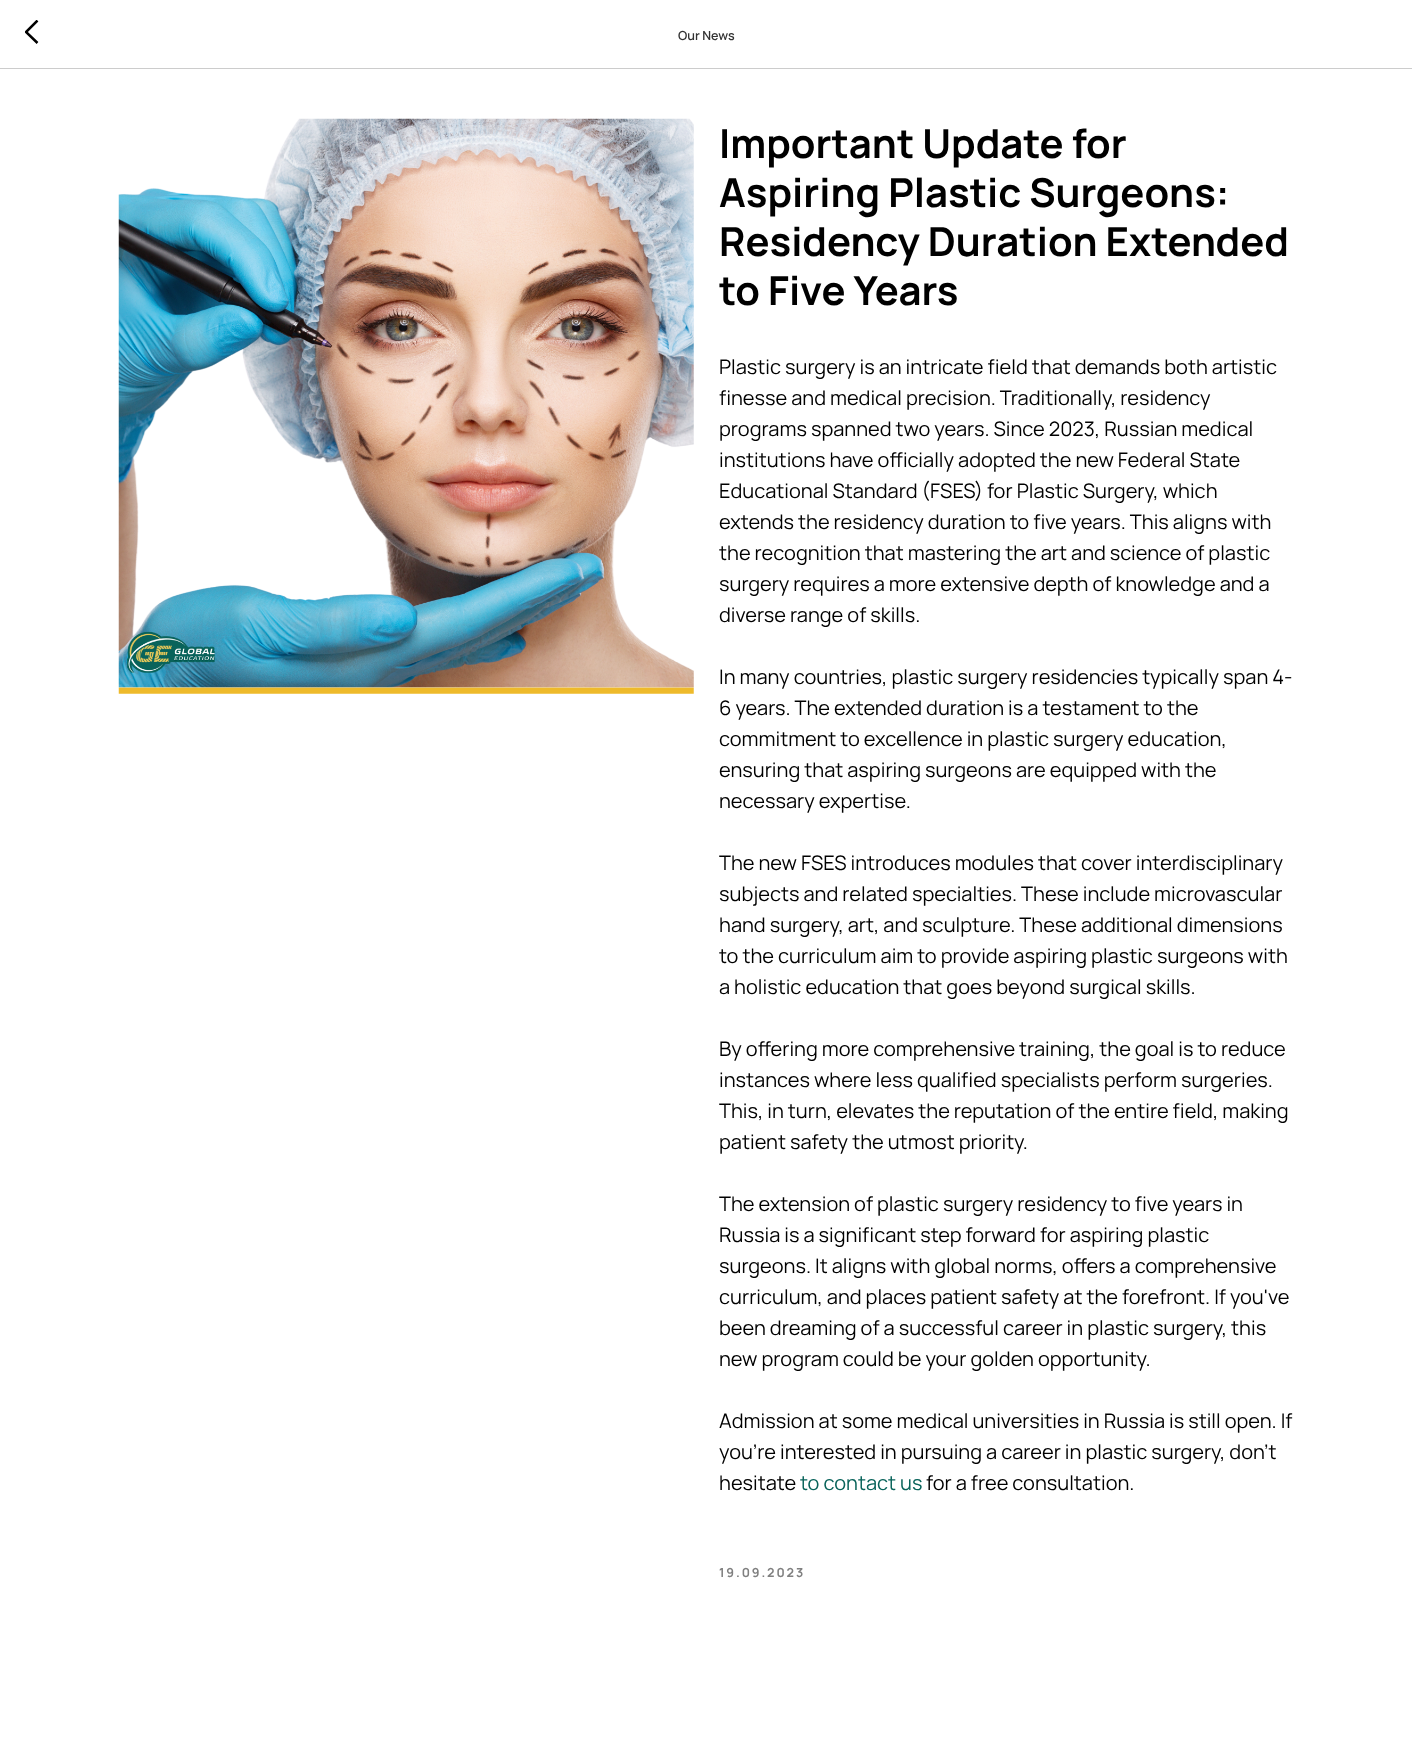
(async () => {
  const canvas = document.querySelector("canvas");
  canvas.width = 1412;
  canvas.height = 1750;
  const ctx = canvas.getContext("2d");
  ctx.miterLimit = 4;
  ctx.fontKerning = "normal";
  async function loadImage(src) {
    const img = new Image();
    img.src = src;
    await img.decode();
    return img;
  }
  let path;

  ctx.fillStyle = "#ffffff";
  ctx.fillRect(0, 0, 1412, 1750);
  ctx.fillStyle = "#cccccc";
  ctx.fillRect(0, 68, 1412, 1);
  ctx.save();
  ctx.beginPath();
  ctx.rect(25, 20, 14, 25);
  ctx.clip();
  path = new Path2D("M37.5 43L26 32L37.5 20.5");
  ctx.strokeStyle = "#000000";
  ctx.lineWidth = 2.5;
  ctx.stroke(path);
  ctx.restore();
  ctx.drawImage(await loadImage("img/1.png"), 118, 118, 576, 576);
  ctx.font = "600 12.5px Manrope";
  ctx.fillStyle = "#333333";
  ctx.fillText("Our News", 678, 40);
  ctx.font = "bold 40px Manrope";
  ctx.fillStyle = "#000000";
  for (const [text, x, y] of [
    ["Important Update for", 719, 158],
    ["Aspiring Plastic Surgeons:", 719, 207],
    ["Residency Duration Extended", 719, 256],
    ["to Five Years", 719, 305],
  ]) {
    ctx.fillText(text, x, y);
  }
  ctx.font = "20px Manrope";
  for (const [text, x, y] of [
    ["Plastic surgery is an intricate field that demands both artistic", 719, 374],
    ["finesse and medical precision. Traditionally, residency", 719, 405],
    ["programs spanned two years. Since 2023, Russian medical", 719, 436],
    ["institutions have officially adopted the new Federal State", 719, 467],
    ["Educational Standard (FSES) for Plastic Surgery, which", 719, 498],
    ["extends the residency duration to five years. This aligns with", 719, 529],
    ["the recognition that mastering the art and science of plastic", 719, 560],
    ["surgery requires a more extensive depth of knowledge and a", 719, 591],
    ["diverse range of skills.", 719, 622],
    ["In many countries, plastic surgery residencies typically span 4-", 719, 684],
    ["6 years. The extended duration is a testament to the", 719, 715],
    ["commitment to excellence in plastic surgery education,", 719, 746],
    ["ensuring that aspiring surgeons are equipped with the", 719, 777],
    ["necessary expertise.", 719, 808],
    ["The new FSES introduces modules that cover interdisciplinary", 719, 870],
    ["subjects and related specialties. These include microvascular", 719, 901],
    ["hand surgery, art, and sculpture. These additional dimensions", 719, 932],
    ["to the curriculum aim to provide aspiring plastic surgeons with", 719, 963],
    ["a holistic education that goes beyond surgical skills.", 719, 994],
    ["By offering more comprehensive training, the goal is to reduce", 719, 1056],
    ["instances where less qualified specialists perform surgeries.", 719, 1087],
    ["This, in turn, elevates the reputation of the entire field, making", 719, 1118],
    ["patient safety the utmost priority.", 719, 1149],
    ["The extension of plastic surgery residency to five years in", 719, 1211],
    ["Russia is a significant step forward for aspiring plastic", 719, 1242],
    ["surgeons. It aligns with global norms, offers a comprehensive", 719, 1273],
    ["curriculum, and places patient safety at the forefront. If you've", 719, 1304],
    ["been dreaming of a successful career in plastic surgery, this", 719, 1335],
    ["new program could be your golden opportunity.", 719, 1366],
    ["Admission at some medical universities in Russia is still open. If", 719, 1428],
    ["you're interested in pursuing a career in plastic surgery, don't", 719, 1459],
    ["hesitate", 719, 1490],
  ]) {
    ctx.fillText(text, x, y);
  }
  ctx.fillStyle = "#08635a";
  ctx.fillText("to contact us", 800, 1490);
  ctx.fillStyle = "#000000";
  ctx.fillText("for a free consultation.", 926, 1490);
  ctx.letterSpacing = "1.9px";
  ctx.font = "bold 12.5px Manrope";
  ctx.fillStyle = "#808080";
  ctx.fillText("19.09.2023", 719, 1577);
})();
